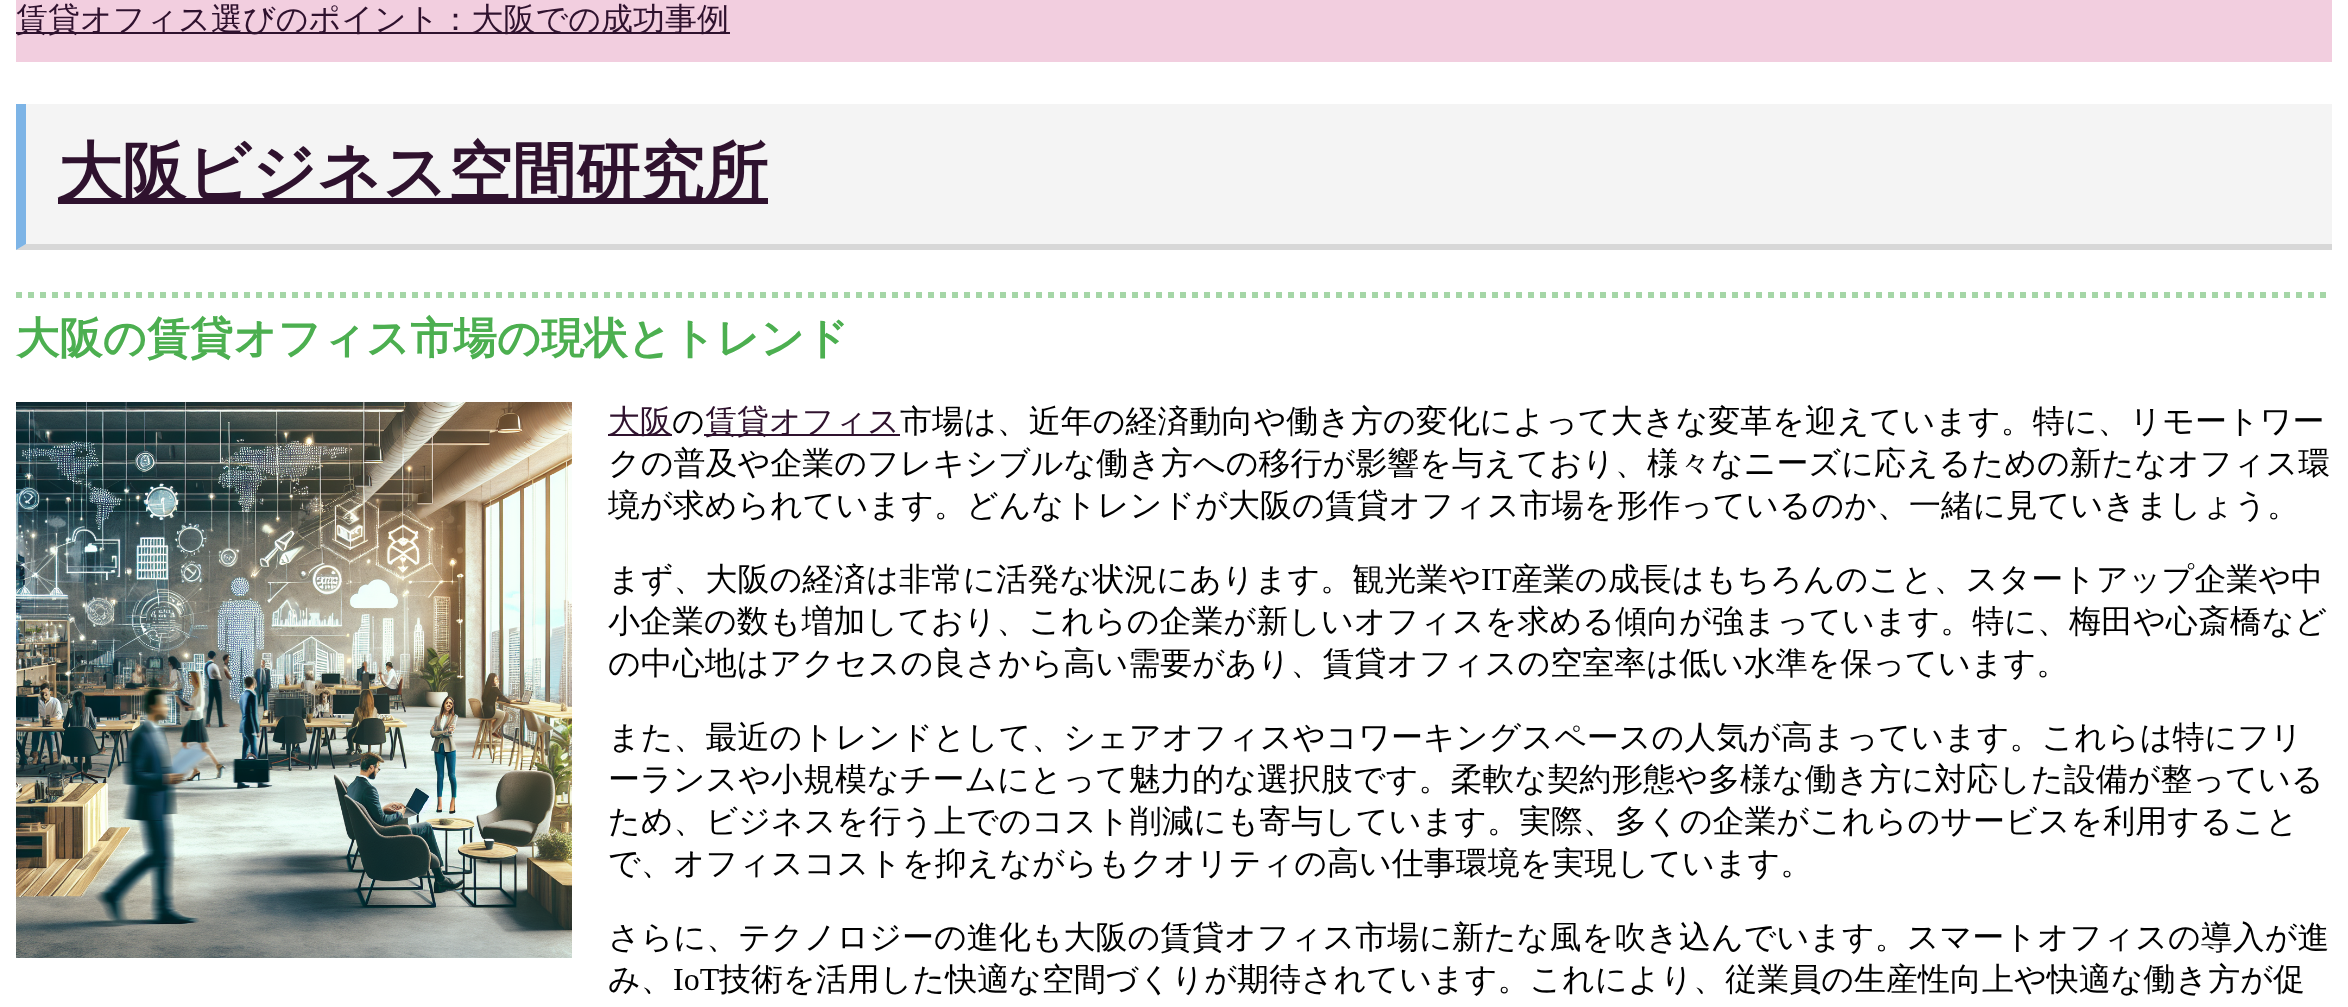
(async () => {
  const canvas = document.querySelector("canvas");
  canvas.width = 2348;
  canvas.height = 1007;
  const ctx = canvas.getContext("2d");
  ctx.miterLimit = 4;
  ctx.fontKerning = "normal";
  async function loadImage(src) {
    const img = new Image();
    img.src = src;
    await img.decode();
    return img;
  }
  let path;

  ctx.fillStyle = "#ffffff";
  ctx.fillRect(0, 0, 2348, 1007);
  for (const [x, y, w, h, color] of [
    [16, 0, 2316, 62, "#f2cedf"],
    [16, 32, 714, 2, "#2f122e"],
    [16, 104, 2316, 146, "#f4f4f4"],
  ]) {
    ctx.fillStyle = color;
    ctx.fillRect(x, y, w, h);
  }
  ctx.fillStyle = "#d7d7d7";
  path = new Path2D("M2332 250H16L26 244H2332Z");
  ctx.fill(path);
  ctx.fillStyle = "#7db4e6";
  path = new Path2D("M16 250V104H26V244Z");
  ctx.fill(path);
  ctx.fillStyle = "#2f122e";
  ctx.fillRect(58, 198, 710, 6);
  path = new Path2D("M16 295H2332");
  ctx.strokeStyle = "#a5d6a7";
  ctx.lineWidth = 6;
  ctx.setLineDash([6, 6]);
  ctx.stroke(path);
  ctx.drawImage(await loadImage("img/1.png"), 16, 402, 556, 556);
  ctx.fillRect(608, 434, 64, 2);
  ctx.fillRect(704, 434, 196, 2);
  ctx.font = "500 32px WenQuanYi Zen Hei";
  ctx.fillText("賃貸オフィス選びのポイント：大阪での成功事例", 16, 30);
  ctx.font = "bold 64px WenQuanYi Zen Hei";
  ctx.fillText("大阪ビジネス空間研究所", 58, 194);
  ctx.font = "bold 43.25px WenQuanYi Zen Hei";
  ctx.fillStyle = "#4caf50";
  ctx.fillText("大阪の賃貸オフィス市場の現状とトレンド", 16, 353);
  ctx.font = "500 32px WenQuanYi Zen Hei";
  ctx.fillStyle = "#2f122e";
  ctx.fillText("大阪", 608, 432);
  ctx.fillStyle = "#000000";
  ctx.fillText("の", 672, 432);
  ctx.fillStyle = "#2f122e";
  ctx.fillText("賃貸オフィス", 705, 432);
  ctx.fillStyle = "#000000";
  for (const [text, x, y] of [
    ["市場は、近年の経済動向や働き方の変化によって大きな変革を迎えています。特に、リモートワー", 900, 432],
    ["クの普及や企業のフレキシブルな働き方への移行が影響を与えており、様々なニーズに応えるための新たなオフィス環", 608, 474],
    ["境が求められています。どんなトレンドが大阪の賃貸オフィス市場を形作っているのか、一緒に見ていきましょう。", 608, 516],
    ["まず、大阪の経済は非常に活発な状況にあります。観光業や", 608, 590],
  ]) {
    ctx.fillText(text, x, y);
  }
  ctx.font = "32px Liberation Serif";
  ctx.fillText("IT", 1481, 590);
  ctx.font = "500 32px WenQuanYi Zen Hei";
  for (const [text, x, y] of [
    ["産業の成長はもちろんのこと、スタートアップ企業や中", 1511, 590],
    ["小企業の数も増加しており、これらの企業が新しいオフィスを求める傾向が強まっています。特に、梅田や心斎橋など", 608, 632],
    ["の中心地はアクセスの良さから高い需要があり、賃貸オフィスの空室率は低い水準を保っています。", 608, 674],
    ["また、最近のトレンドとして、シェアオフィスやコワーキングスペースの人気が高まっています。これらは特にフリ", 608, 748],
    ["ーランスや小規模なチームにとって魅力的な選択肢です。柔軟な契約形態や多様な働き方に対応した設備が整っている", 608, 790],
    ["ため、ビジネスを行う上でのコスト削減にも寄与しています。実際、多くの企業がこれらのサービスを利用すること", 608, 832],
    ["で、オフィスコストを抑えながらもクオリティの高い仕事環境を実現しています。", 608, 874],
    ["さらに、テクノロジーの進化も大阪の賃貸オフィス市場に新たな風を吹き込んでいます。スマートオフィスの導入が進", 608, 948],
    ["み、", 608, 990],
  ]) {
    ctx.fillText(text, x, y);
  }
  ctx.font = "32px Liberation Serif";
  ctx.fillText("IoT", 673, 990);
  ctx.font = "500 32px WenQuanYi Zen Hei";
  ctx.fillText("技術を活用した快適な空間づくりが期待されています。これにより、従業員の生産性向上や快適な働き方が促", 719, 990);
})();
